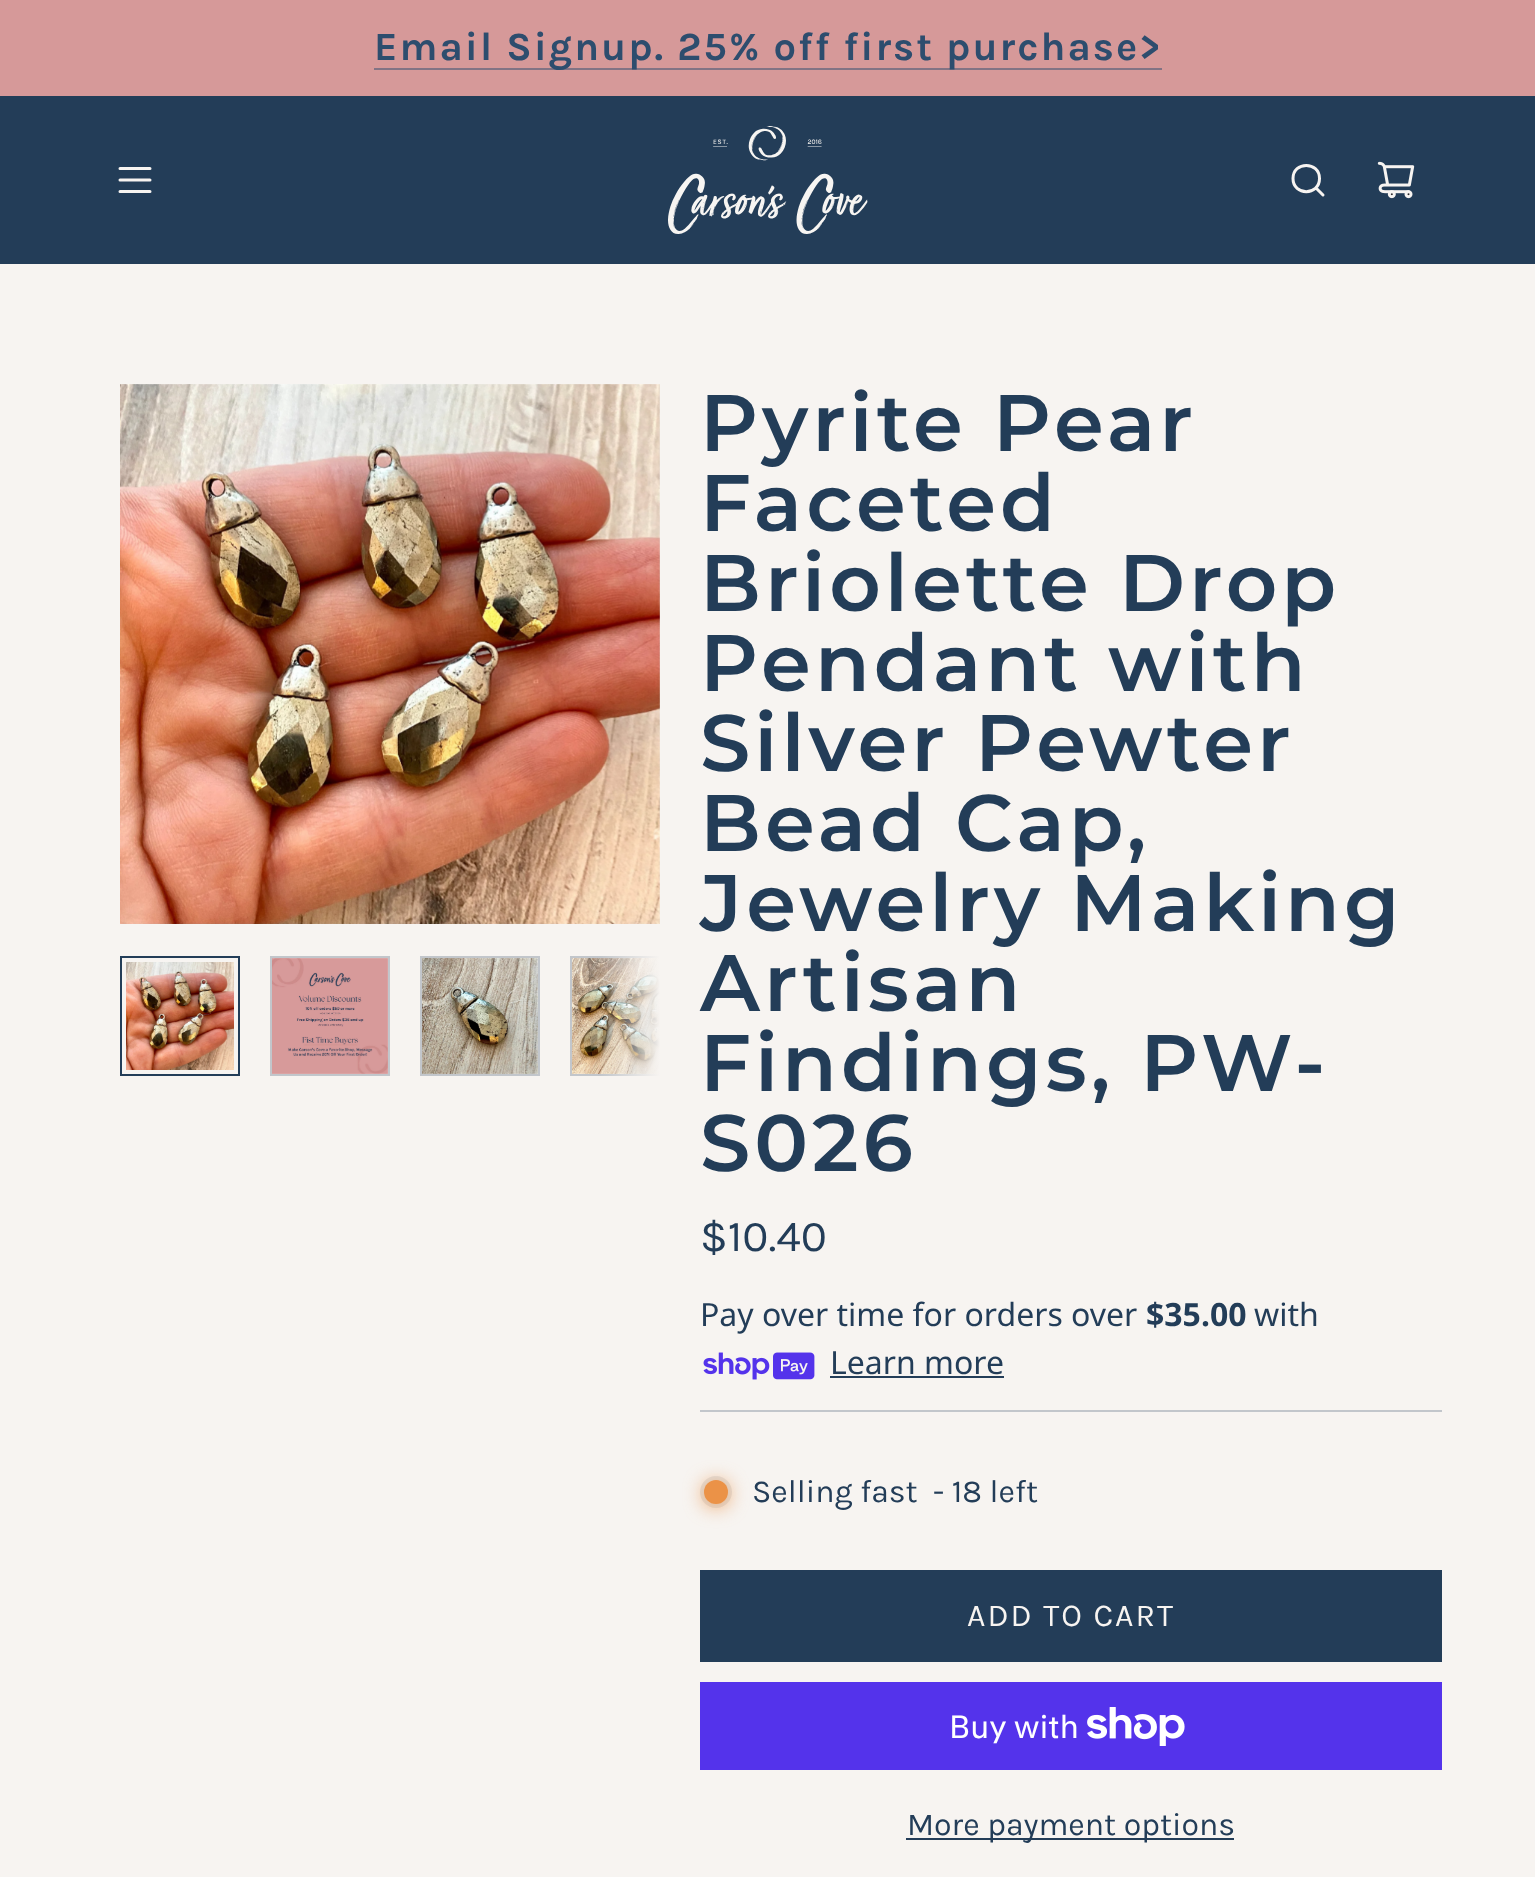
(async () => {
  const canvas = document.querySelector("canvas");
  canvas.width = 1535;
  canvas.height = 1877;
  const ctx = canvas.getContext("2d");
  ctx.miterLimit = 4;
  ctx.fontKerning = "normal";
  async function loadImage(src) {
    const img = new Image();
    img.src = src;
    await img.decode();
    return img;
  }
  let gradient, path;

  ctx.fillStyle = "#f7f4f1";
  ctx.fillRect(0, 0, 1535, 1877);
  for (const [x, y, w, h, color] of [
    [0, 0, 1535, 96, "#d69999"],
    [374, 68, 788, 2, "#827384"],
    [0, 96, 1535, 168, "#233d58"],
  ]) {
    ctx.fillStyle = color;
    ctx.fillRect(x, y, w, h);
  }
  path = new Path2D("M120 168.5H150M120 180H150M120 191.5H150");
  ctx.strokeStyle = "#f7f4f1";
  ctx.lineWidth = 3;
  ctx.lineCap = "round";
  ctx.lineJoin = "round";
  ctx.stroke(path);
  ctx.drawImage(await loadImage("img/1.png"), 668, 126, 200, 108);
  path = new Path2D("M1316.5 188.5L1323 195M1293 178.5C1293 196 1319.5 196 1319.5 178.5C1319.5 161 1293 161 1293 178.5Z");
  ctx.stroke(path);
  ctx.drawImage(await loadImage("img/2.png"), 1377, 161, 38, 38);
  ctx.drawImage(await loadImage("img/3.png"), 120, 384, 540, 540);
  ctx.strokeStyle = "#233d58";
  ctx.lineWidth = 2;
  ctx.lineJoin = "miter";
  ctx.strokeRect(121, 957, 118, 118);
  ctx.drawImage(await loadImage("img/4.png"), 126, 962, 108, 108);
  ctx.strokeStyle = "#c2c6cb";
  ctx.strokeRect(271, 957, 118, 118);
  ctx.drawImage(await loadImage("img/5.png"), 272, 958, 116, 116);
  ctx.strokeRect(421, 957, 118, 118);
  ctx.drawImage(await loadImage("img/6.png"), 422, 958, 116, 116);
  ctx.save();
  ctx.beginPath();
  ctx.rect(120, 954, 540, 124);
  ctx.clip();
  ctx.strokeRect(571, 957, 118, 118);
  ctx.restore();
  ctx.drawImage(await loadImage("img/7.png"), 572, 958, 88, 116);
  gradient = ctx.createLinearGradient(600, 1016, 660, 1016);
  gradient.addColorStop(0, "rgba(247, 244, 241, 0)");
  gradient.addColorStop(1, "#f7f4f1");
  ctx.fillStyle = gradient;
  ctx.fillRect(601, 956, 59, 120);
  ctx.drawImage(await loadImage("img/8.png"), 703, 1352, 112, 28);
  ctx.fillStyle = "#233d58";
  ctx.fillRect(830, 1376, 174, 2);
  ctx.fillStyle = "#c2c6cb";
  ctx.fillRect(700, 1410, 742, 2);
  ctx.fillStyle = "#e2e2e2";
  ctx.beginPath();
  ctx.arc(716, 1492, 16, 0, Math.PI * 2);
  ctx.fill();
  ctx.fillStyle = "#eb9247";
  ctx.filter = "blur(10px)";
  ctx.beginPath();
  ctx.roundRect(704, 1482, 24, 24, 12);
  ctx.fill();
  ctx.filter = "none";
  ctx.beginPath();
  ctx.arc(716, 1492, 12, 0, Math.PI * 2);
  ctx.fill();
  ctx.fillStyle = "#233d58";
  ctx.fillRect(700, 1570, 742, 92);
  ctx.fillStyle = "#5433eb";
  ctx.fillRect(700, 1682, 742, 88);
  ctx.drawImage(await loadImage("img/9.png"), 1087, 1707, 98, 39);
  ctx.fillStyle = "#233d58";
  ctx.fillRect(906, 1838, 328, 2);
  ctx.letterSpacing = "2px";
  ctx.font = "bold 40px Karla";
  ctx.fillStyle = "#2d4d6e";
  ctx.fillText("Email Signup. 25% off first purchase>", 374, 60);
  ctx.letterSpacing = "4px";
  ctx.font = "600 80px Montserrat";
  ctx.fillStyle = "#233d58";
  for (const [text, x, y] of [
    ["Pyrite Pear", 700, 451],
    ["Faceted", 700, 531],
    ["Briolette Drop", 700, 611],
    ["Pendant with", 700, 691],
    ["Silver Pewter", 700, 771],
    ["Bead Cap,", 700, 851],
    ["Jewelry Making", 700, 931],
    ["Artisan", 700, 1011],
    ["Findings, PW-", 700, 1091],
    ["S026", 700, 1171],
  ]) {
    ctx.fillText(text, x, y);
  }
  ctx.letterSpacing = "0px";
  ctx.font = "44px Karla";
  ctx.fillText("$10.40", 700, 1251);
  ctx.font = "32px Noto Sans";
  ctx.fillText("Pay over time for orders over", 700, 1326);
  ctx.font = "bold 32px Noto Sans";
  ctx.fillText("$35.00", 1146, 1326);
  ctx.font = "32px Noto Sans";
  ctx.fillText("with", 1254, 1326);
  ctx.fillText("Learn more", 830, 1374);
  ctx.font = "32px Karla";
  ctx.fillText("Selling fast", 752, 1502);
  ctx.fillText("- 18 left", 933, 1502);
  ctx.letterSpacing = "2px";
  ctx.fillStyle = "#f7f4f1";
  ctx.fillText("ADD TO CART", 967, 1626);
  ctx.letterSpacing = "0px";
  ctx.font = "32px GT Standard";
  ctx.fillStyle = "#ffffff";
  ctx.fillText("Buy with", 949, 1738);
  ctx.font = "32px Karla";
  ctx.fillStyle = "#233d58";
  ctx.fillText("More payment options", 907, 1835);
})();
